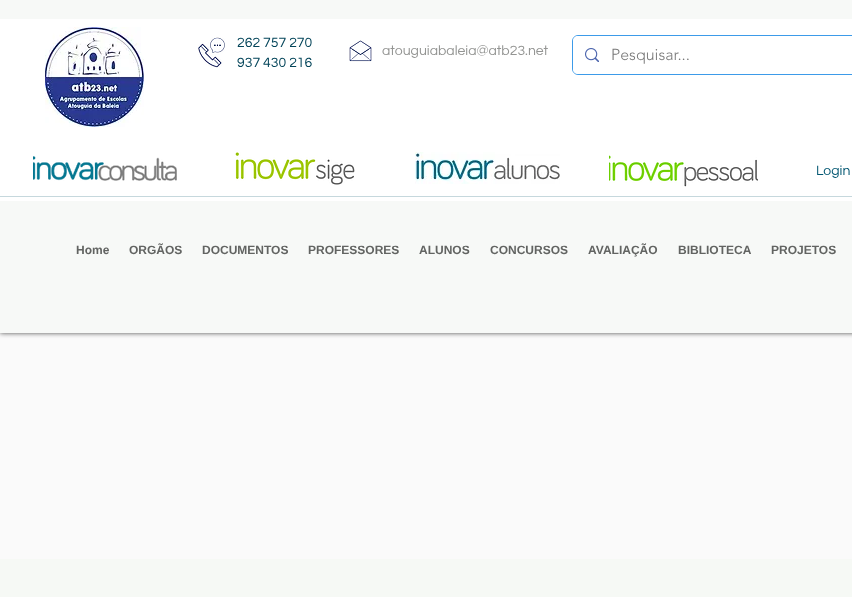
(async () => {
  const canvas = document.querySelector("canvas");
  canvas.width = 852;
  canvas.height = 597;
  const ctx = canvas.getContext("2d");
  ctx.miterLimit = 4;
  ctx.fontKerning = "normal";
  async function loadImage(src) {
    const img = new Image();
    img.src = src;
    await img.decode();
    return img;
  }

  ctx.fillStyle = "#fafafa";
  ctx.fillRect(0, 0, 852, 597);
  ctx.fillStyle = "rgba(0, 0, 0, 0.7)";
  ctx.filter = "blur(2.5px)";
  ctx.beginPath();
  ctx.rect(0, 0, 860, 333);
  ctx.fill();
  ctx.filter = "none";
  ctx.fillStyle = "#f7f9f7";
  ctx.fillRect(0, 0, 852, 333);
  ctx.fillStyle = "#ffffff";
  ctx.fillRect(0, 19, 852, 182);
  ctx.drawImage(await loadImage("img/1.png"), 45, 27, 99, 100);
  ctx.drawImage(await loadImage("img/2.png"), 198, 37, 27, 31);
  ctx.drawImage(await loadImage("img/3.png"), 349, 40, 23, 22);
  ctx.beginPath();
  ctx.roundRect(572.5, 35.5, 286, 39, 5.5);
  ctx.strokeStyle = "#3d9be9";
  ctx.stroke();
  ctx.beginPath();
  ctx.roundRect(573, 36, 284, 38, 5);
  ctx.fill();
  ctx.drawImage(await loadImage("img/4.png"), 585, 48, 14, 14);
  ctx.drawImage(await loadImage("img/5.png"), 33, 156, 144, 25);
  ctx.drawImage(await loadImage("img/6.png"), 235, 152, 120, 33);
  ctx.drawImage(await loadImage("img/7.png"), 415, 152, 145, 32);
  ctx.drawImage(await loadImage("img/8.png"), 609, 155, 149, 32);
  ctx.fillStyle = "#c6d8dd";
  ctx.fillRect(0, 196, 852, 1);
  ctx.fillStyle = "#f6f9f5";
  ctx.fillRect(0, 559, 852, 38);
  ctx.font = "14px Questrial";
  ctx.fillStyle = "#034459";
  ctx.fillText("262 757 270", 237, 47);
  ctx.fillText("937 430 216", 237, 67);
  ctx.fillStyle = "#949593";
  ctx.fillText("atouguiabaleia@atb23.net", 382, 55);
  ctx.font = "300 16px 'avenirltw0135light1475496'";
  ctx.fillStyle = "#787878";
  ctx.fillText("Pesquisar...", 611, 60);
  ctx.font = "14px Questrial";
  ctx.fillStyle = "#035772";
  ctx.fillText("Login", 816, 175);
  ctx.font = "bold 12px Liberation Sans";
  ctx.fillStyle = "#626462";
  for (const [text, x, y] of [
    ["Home", 76, 254],
    ["ORGÃOS", 129, 254],
    ["DOCUMENTOS", 202, 254],
    ["PROFESSORES", 308, 254],
    ["ALUNOS", 419, 254],
    ["CONCURSOS", 490, 254],
    ["AVALIAÇÃO", 588, 254],
    ["BIBLIOTECA", 678, 254],
    ["PROJETOS", 771, 254],
  ]) {
    ctx.fillText(text, x, y);
  }
})();
